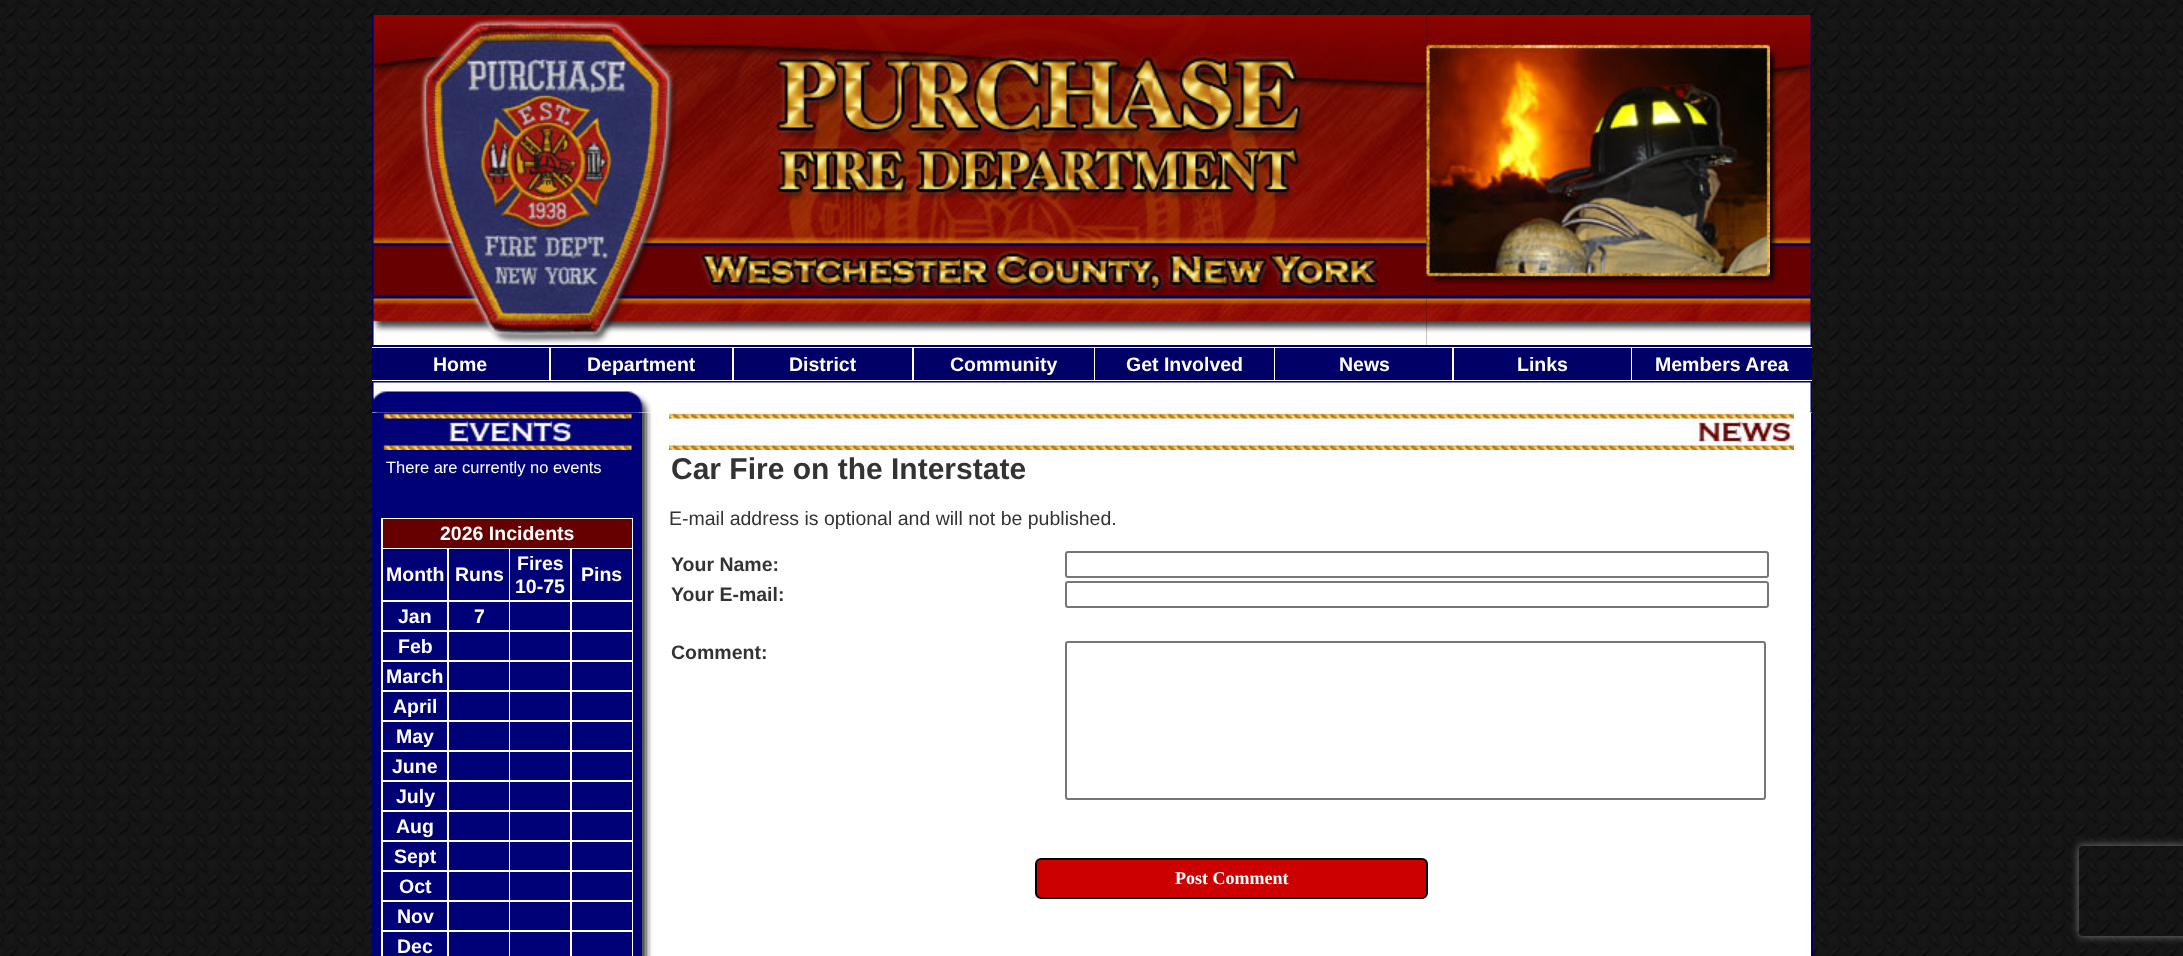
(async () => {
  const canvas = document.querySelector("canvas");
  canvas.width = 2183;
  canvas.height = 956;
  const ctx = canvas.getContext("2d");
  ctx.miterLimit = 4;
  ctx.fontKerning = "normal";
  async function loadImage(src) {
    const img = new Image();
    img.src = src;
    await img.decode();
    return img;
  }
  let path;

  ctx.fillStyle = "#ffffff";
  ctx.fillRect(0, 0, 2183, 956);
  ctx.drawImage(await loadImage("img/1.png"), 0, 0, 2183, 956);
  ctx.drawImage(await loadImage("img/2.png"), 372, 15, 1055, 330);
  ctx.drawImage(await loadImage("img/3.png"), 1426, 15, 344, 330);
  ctx.drawImage(await loadImage("img/4.png"), 1770, 15, 42, 330);
  for (const [x, y, w, h, color] of [
    [372, 347, 1440, 66, "#ffffff"],
    [372, 345, 1440, 2, "#000066"],
    [372, 348, 1259, 32, "#000066"],
    [549, 348, 2, 32, "#ffffff"],
    [732, 348, 2, 32, "#ffffff"],
    [912, 348, 2, 32, "#ffffff"],
    [1094, 348, 1, 32, "#ffffff"],
    [1274, 348, 1, 32, "#ffffff"],
    [1452, 348, 2, 32, "#ffffff"],
    [1632, 348, 180, 32, "#000066"],
    [372, 381, 1440, 2, "#000066"],
  ]) {
    ctx.fillStyle = color;
    ctx.fillRect(x, y, w, h);
  }
  ctx.drawImage(await loadImage("img/5.png"), 372, 382, 1440, 31);
  ctx.fillStyle = "#000077";
  ctx.fillRect(372, 413, 270, 543);
  ctx.drawImage(await loadImage("img/6.png"), 376, 412, 263, 38);
  for (const [x, y, w, h, color] of [
    [381, 518, 252, 438, "#ffffff"],
    [383, 519, 249, 29, "#660000"],
    [383, 549, 64, 51, "#000077"],
    [449, 549, 60, 51, "#000077"],
    [510, 549, 60, 51, "#000077"],
    [572, 549, 60, 51, "#000077"],
    [383, 602, 64, 28, "#000077"],
    [449, 602, 60, 28, "#000077"],
    [510, 602, 60, 28, "#000077"],
    [572, 602, 60, 28, "#000077"],
    [383, 632, 64, 28, "#000077"],
    [449, 632, 60, 28, "#000077"],
    [510, 632, 60, 28, "#000077"],
    [572, 632, 60, 28, "#000077"],
    [383, 662, 64, 28, "#000077"],
    [449, 662, 60, 28, "#000077"],
    [510, 662, 60, 28, "#000077"],
    [572, 662, 60, 28, "#000077"],
    [383, 692, 64, 28, "#000077"],
    [449, 692, 60, 28, "#000077"],
    [510, 692, 60, 28, "#000077"],
    [572, 692, 60, 28, "#000077"],
    [383, 722, 64, 28, "#000077"],
    [449, 722, 60, 28, "#000077"],
    [510, 722, 60, 28, "#000077"],
    [572, 722, 60, 28, "#000077"],
    [383, 752, 64, 28, "#000077"],
    [449, 752, 60, 28, "#000077"],
    [510, 752, 60, 28, "#000077"],
    [572, 752, 60, 28, "#000077"],
    [383, 782, 64, 28, "#000077"],
    [449, 782, 60, 28, "#000077"],
    [510, 782, 60, 28, "#000077"],
    [572, 782, 60, 28, "#000077"],
    [383, 812, 64, 28, "#000077"],
    [449, 812, 60, 28, "#000077"],
    [510, 812, 60, 28, "#000077"],
    [572, 812, 60, 28, "#000077"],
    [383, 842, 64, 28, "#000077"],
    [449, 842, 60, 28, "#000077"],
    [510, 842, 60, 28, "#000077"],
    [572, 842, 60, 28, "#000077"],
    [383, 872, 64, 28, "#000077"],
    [449, 872, 60, 28, "#000077"],
    [510, 872, 60, 28, "#000077"],
    [572, 872, 60, 28, "#000077"],
    [383, 902, 64, 28, "#000077"],
    [449, 902, 60, 28, "#000077"],
    [510, 902, 60, 28, "#000077"],
    [572, 902, 60, 28, "#000077"],
    [383, 932, 64, 24, "#000077"],
    [449, 932, 60, 24, "#000077"],
    [510, 932, 60, 24, "#000077"],
    [572, 932, 60, 24, "#000077"],
    [642, 413, 2, 543, "#575757"],
    [644, 413, 1, 543, "#6e6e6e"],
    [645, 413, 2, 543, "#8c8c8c"],
    [647, 413, 1, 543, "#b3b3b3"],
    [648, 413, 2, 543, "#d1d1d1"],
    [650, 413, 1, 543, "#e8e8e8"],
    [651, 413, 2, 543, "#f8f8f8"],
    [653, 413, 1158, 543, "#ffffff"],
  ]) {
    ctx.fillStyle = color;
    ctx.fillRect(x, y, w, h);
  }
  ctx.drawImage(await loadImage("img/7.png"), 669, 412, 1125, 38);
  ctx.beginPath();
  ctx.roundRect(1066, 552, 702, 25, 2);
  ctx.strokeStyle = "#767676";
  ctx.lineWidth = 2;
  ctx.stroke();
  ctx.beginPath();
  ctx.roundRect(1066, 582, 702, 25, 2);
  ctx.stroke();
  ctx.beginPath();
  ctx.roundRect(1066, 642, 699, 157, 2);
  ctx.stroke();
  ctx.fillStyle = "#cc0000";
  ctx.beginPath();
  ctx.roundRect(1036, 859, 391, 39, 5);
  ctx.fill();
  ctx.strokeStyle = "#000000";
  ctx.stroke();
  ctx.fillStyle = "#000066";
  ctx.fillRect(1811, 413, 2, 543);
  ctx.save();
  path = new Path2D("M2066 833H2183V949H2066ZM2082 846H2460C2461.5 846 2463 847.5 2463 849V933C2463 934.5 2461.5 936 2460 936H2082C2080.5 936 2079 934.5 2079 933V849C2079 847.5 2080.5 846 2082 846Z");
  ctx.clip(path, "evenodd");
  ctx.fillStyle = "#808080";
  ctx.filter = "blur(4px)";
  ctx.beginPath();
  ctx.roundRect(2079, 846, 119, 90, 3);
  ctx.fill();
  ctx.filter = "none";
  ctx.restore();
  ctx.font = "bold 19.5px Liberation Sans";
  ctx.fillStyle = "#ffffff";
  for (const [text, x, y] of [
    ["Home", 433, 371],
    ["Department", 587, 371],
    ["District", 789, 371],
    ["Community", 950, 371],
    ["Get Involved", 1126, 371],
    ["News", 1339, 371],
    ["Links", 1517, 371],
    ["Members Area", 1655, 371],
  ]) {
    ctx.fillText(text, x, y);
  }
  ctx.font = "16.5px Liberation Sans";
  ctx.fillText("There are currently no events", 386, 473);
  ctx.font = "bold 19.5px Liberation Sans";
  for (const [text, x, y] of [
    ["2026 Incidents", 440, 540],
    ["Month", 386, 581],
    ["Runs", 455, 581],
    ["Fires", 517, 570],
    ["10-75", 515, 593],
    ["Pins", 581, 581],
    ["Jan", 398, 623],
    ["7", 474, 623],
    ["Feb", 398, 653],
    ["March", 386, 683],
    ["April", 393, 713],
    ["May", 396, 743],
    ["June", 392, 773],
    ["July", 396, 803],
    ["Aug", 396, 833],
    ["Sept", 394, 863],
    ["Oct", 399, 893],
    ["Nov", 397, 923],
    ["Dec", 397, 953],
  ]) {
    ctx.fillText(text, x, y);
  }
  ctx.font = "bold 30px Liberation Sans";
  ctx.fillStyle = "#333333";
  ctx.fillText("Car Fire on the Interstate", 671, 479);
  ctx.font = "19.5px Liberation Sans";
  ctx.fillText("E-mail address is optional and will not be published.", 669, 525);
  ctx.font = "bold 19.5px Liberation Sans";
  for (const [text, x, y] of [
    ["Your Name:", 671, 571],
    ["Your E-mail:", 671, 601],
    ["Comment:", 671, 659],
  ]) {
    ctx.fillText(text, x, y);
  }
  ctx.font = "bold 18px Liberation Serif";
  ctx.fillStyle = "#ffffff";
  ctx.fillText("Post Comment", 1175, 884);
})();
